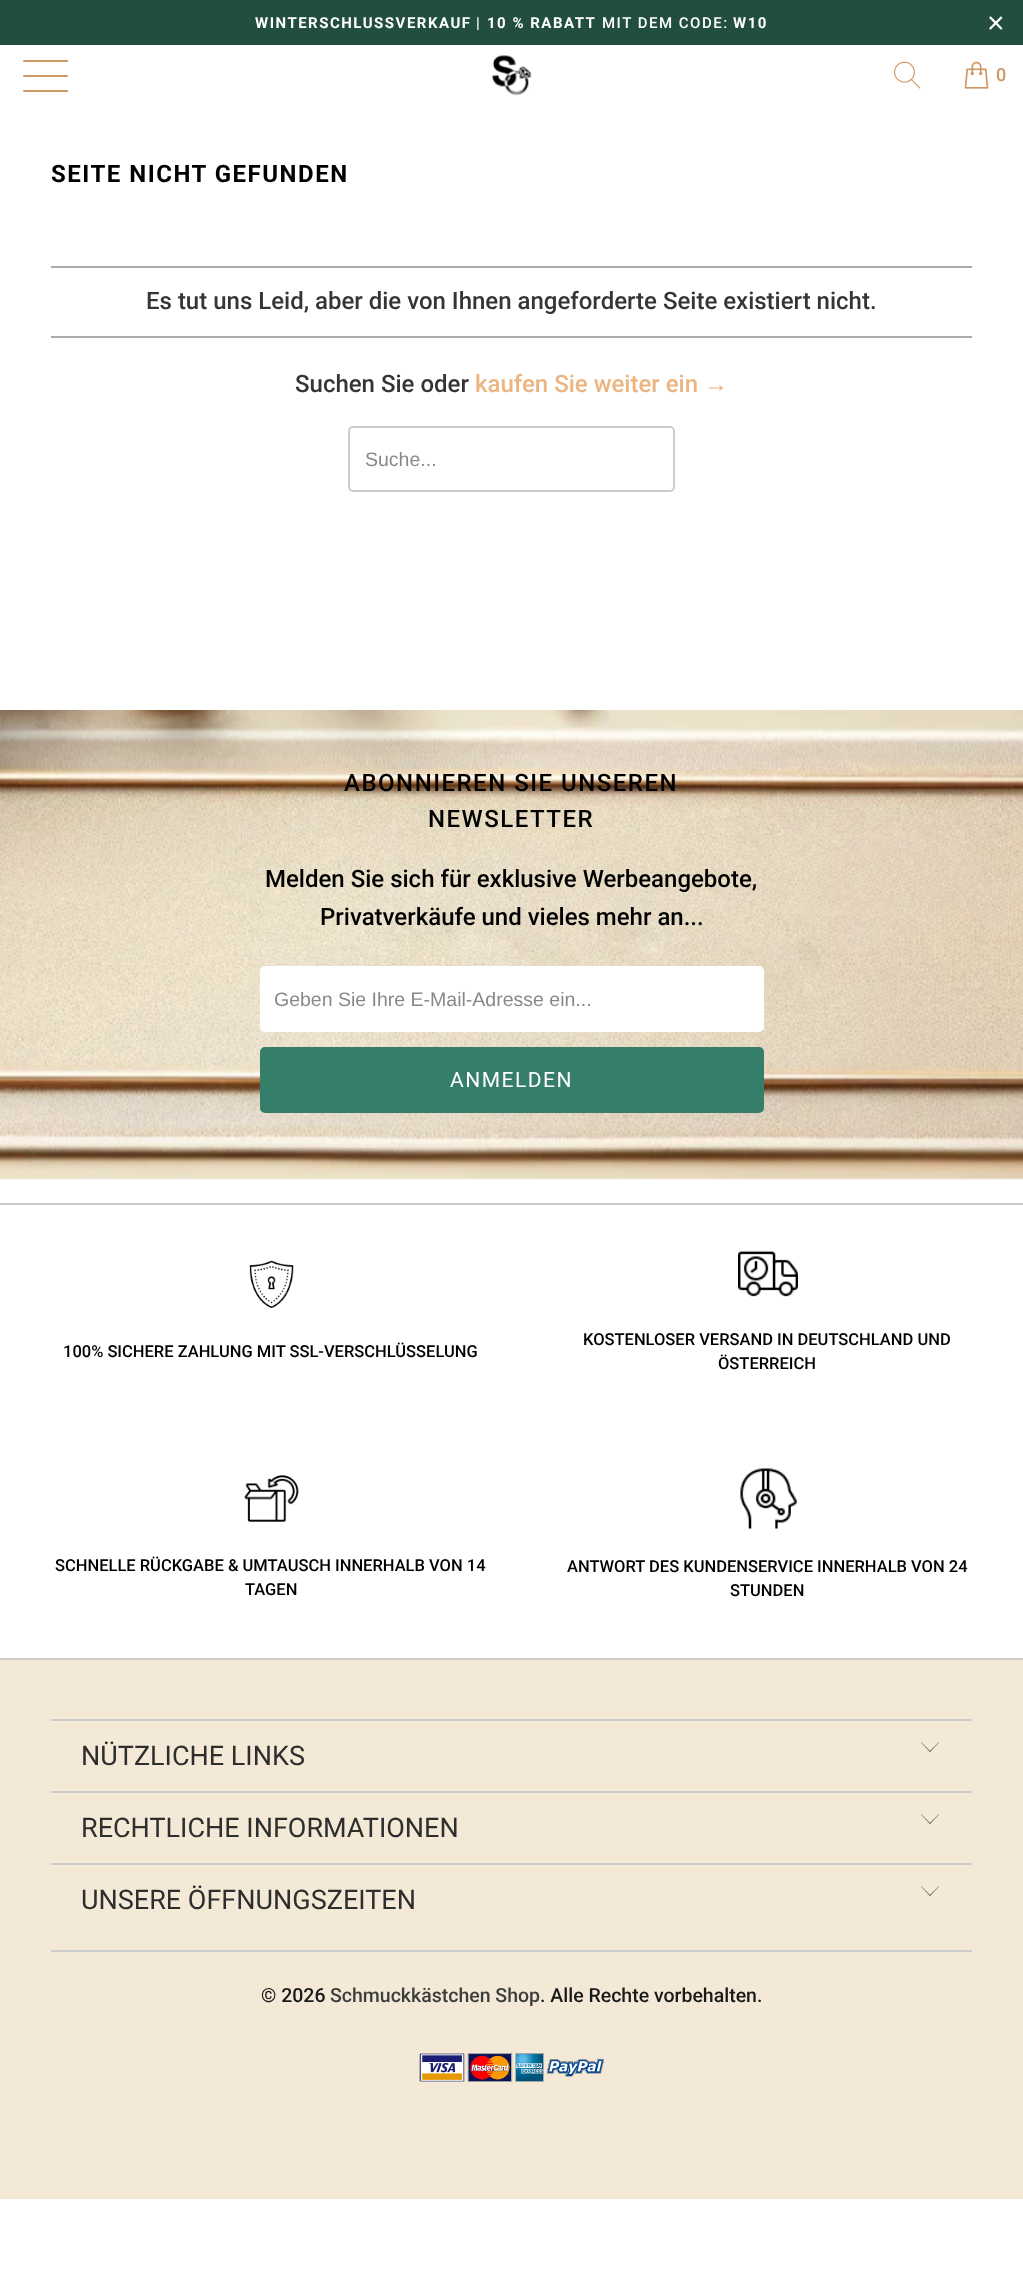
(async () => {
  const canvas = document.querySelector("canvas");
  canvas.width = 1023;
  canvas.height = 2280;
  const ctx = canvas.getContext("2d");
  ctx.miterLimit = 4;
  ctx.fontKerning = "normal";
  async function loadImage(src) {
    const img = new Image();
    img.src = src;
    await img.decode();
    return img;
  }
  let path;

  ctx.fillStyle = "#ffffff";
  ctx.fillRect(0, 0, 1023, 2280);
  ctx.fillStyle = "#224d41";
  ctx.fillRect(0, 0, 1023, 45);
  ctx.fillStyle = "#ce9866";
  ctx.beginPath();
  ctx.roundRect(23, 60, 45, 2, 1);
  ctx.fill();
  ctx.beginPath();
  ctx.roundRect(23, 75, 45, 2, 1);
  ctx.fill();
  ctx.beginPath();
  ctx.roundRect(23, 90, 45, 2, 1);
  ctx.fill();
  ctx.drawImage(await loadImage("img/1.png"), 491, 55, 41, 41);
  ctx.drawImage(await loadImage("img/2.png"), 894, 61, 27, 28);
  ctx.drawImage(await loadImage("img/3.png"), 964, 61, 25, 28);
  ctx.fillStyle = "#aaaaaa";
  ctx.fillRect(51, 266, 921, 2);
  ctx.fillRect(51, 336, 921, 2);
  ctx.beginPath();
  ctx.roundRect(349, 427, 325, 64, 4);
  ctx.strokeStyle = "#cccccc";
  ctx.lineWidth = 2;
  ctx.stroke();
  ctx.drawImage(await loadImage("img/4.png"), 0, 710, 1023, 470);
  ctx.fillStyle = "#ffffff";
  ctx.beginPath();
  ctx.roundRect(260, 966, 504, 66, 5);
  ctx.fill();
  ctx.fillStyle = "#357e69";
  ctx.beginPath();
  ctx.roundRect(261, 1048, 502, 64, 4);
  ctx.fill();
  ctx.strokeStyle = "#357e69";
  ctx.stroke();
  ctx.fillStyle = "#cccccc";
  ctx.fillRect(0, 1203, 1023, 2);
  ctx.drawImage(await loadImage("img/5.png"), 249, 1260, 45, 48);
  ctx.drawImage(await loadImage("img/6.png"), 738, 1251, 60, 46);
  ctx.drawImage(await loadImage("img/7.png"), 244, 1475, 55, 47);
  ctx.drawImage(await loadImage("img/8.png"), 740, 1468, 57, 61);
  for (const [x, y, w, h, color] of [
    [0, 1660, 1023, 539, "#f4e9d7"],
    [0, 1658, 1023, 2, "#cccccc"],
    [51, 1719, 921, 2, "#cccccc"],
  ]) {
    ctx.fillStyle = color;
    ctx.fillRect(x, y, w, h);
  }
  ctx.fillStyle = "#2e2e2e";
  path = new Path2D("M930 1752L921 1742.5H921.5L930 1751L938.5 1742.5H939Z");
  ctx.fill(path);
  ctx.fillStyle = "#cccccc";
  ctx.fillRect(51, 1791, 921, 2);
  ctx.fillStyle = "#2e2e2e";
  path = new Path2D("M930 1824L921 1814.5H921.5L930 1823L938.5 1814.5H939Z");
  ctx.fill(path);
  ctx.fillStyle = "#cccccc";
  ctx.fillRect(51, 1863, 921, 2);
  ctx.fillStyle = "#2e2e2e";
  path = new Path2D("M930 1896L921 1886.5H921.5L930 1895L938.5 1886.5H939Z");
  ctx.fill(path);
  ctx.fillStyle = "#cccccc";
  ctx.fillRect(51, 1950, 921, 2);
  ctx.drawImage(await loadImage("img/9.png"), 419, 2053, 186, 29);
  ctx.letterSpacing = "1.5px";
  ctx.font = "bold 15px Roboto";
  ctx.fillStyle = "#ffffff";
  ctx.fillText("WINTERSCHLUSSVERKAUF", 255, 28);
  ctx.font = "500 15px Roboto";
  ctx.fillText("|", 476, 28);
  ctx.font = "bold 15px Roboto";
  ctx.fillText("10 % RABATT", 487, 28);
  ctx.font = "500 15px Roboto";
  ctx.fillText("MIT DEM CODE:", 602, 28);
  ctx.font = "bold 15px Roboto";
  ctx.fillText("W10", 733, 28);
  ctx.font = "30px Liberation Sans";
  ctx.fillText("×", 987, 33);
  ctx.font = "500 18px Roboto";
  ctx.fillStyle = "#ce9866";
  ctx.fillText("0", 996, 81);
  ctx.font = "bold 24px Roboto";
  ctx.fillStyle = "#000000";
  ctx.fillText("SEITE NICHT GEFUNDEN", 51, 182);
  ctx.letterSpacing = "0px";
  ctx.font = "500 24px Roboto";
  ctx.fillStyle = "#353535";
  ctx.fillText("Es tut uns Leid, aber die von Ihnen angeforderte Seite existiert nicht.", 146, 309);
  ctx.fillText("Suchen Sie oder", 295, 392);
  ctx.fillStyle = "#ecb481";
  ctx.fillText("kaufen Sie weiter ein", 475, 392);
  ctx.font = "24px Liberation Sans";
  ctx.fillText("→", 704, 392);
  ctx.font = "19.5px Liberation Sans";
  ctx.fillStyle = "#888888";
  ctx.fillText("Suche...", 365, 466);
  ctx.letterSpacing = "1.5px";
  ctx.font = "500 24px Roboto";
  ctx.fillStyle = "#000000";
  ctx.fillText("ABONNIEREN SIE UNSEREN", 344, 791);
  ctx.fillText("NEWSLETTER", 428, 827);
  ctx.letterSpacing = "0px";
  ctx.fillText("Melden Sie sich für exklusive Werbeangebote,", 265, 887);
  ctx.fillText("Privatverkäufe und vieles mehr an...", 320, 925);
  ctx.font = "19.5px Liberation Sans";
  ctx.fillStyle = "#888888";
  ctx.fillText("Geben Sie Ihre E-Mail-Adresse ein...", 274, 1006);
  ctx.letterSpacing = "1.5px";
  ctx.font = "21px Roboto";
  ctx.fillStyle = "#ffffff";
  ctx.fillText("ANMELDEN", 450, 1087);
  ctx.letterSpacing = "0px";
  ctx.font = "500 16.5px Roboto";
  ctx.fillStyle = "#000000";
  for (const [text, x, y] of [
    ["100% SICHERE ZAHLUNG MIT SSL-VERSCHLÜSSELUNG", 63, 1357],
    ["KOSTENLOSER VERSAND IN DEUTSCHLAND UND", 583, 1345],
    ["ÖSTERREICH", 718, 1369],
    ["SCHNELLE RÜCKGABE & UMTAUSCH INNERHALB VON 14", 55, 1571],
    ["TAGEN", 245, 1595],
    ["ANTWORT DES KUNDENSERVICE INNERHALB VON 24", 567, 1572],
    ["STUNDEN", 730, 1596],
  ]) {
    ctx.fillText(text, x, y);
  }
  ctx.font = "27px Roboto";
  ctx.fillStyle = "#2e2e2e";
  for (const [text, x, y] of [
    ["NÜTZLICHE LINKS", 81, 1765],
    ["RECHTLICHE INFORMATIONEN", 81, 1837],
    ["UNSERE ÖFFNUNGSZEITEN", 81, 1909],
  ]) {
    ctx.fillText(text, x, y);
  }
  ctx.font = "500 19.5px Roboto";
  ctx.fillStyle = "#191919";
  ctx.fillText("© 2026", 261, 2002);
  ctx.fillStyle = "#3c3d3d";
  ctx.fillText("Schmuckkästchen Shop", 330, 2002);
  ctx.fillStyle = "#191919";
  ctx.fillText(". Alle Rechte vorbehalten.", 540, 2002);
})();
